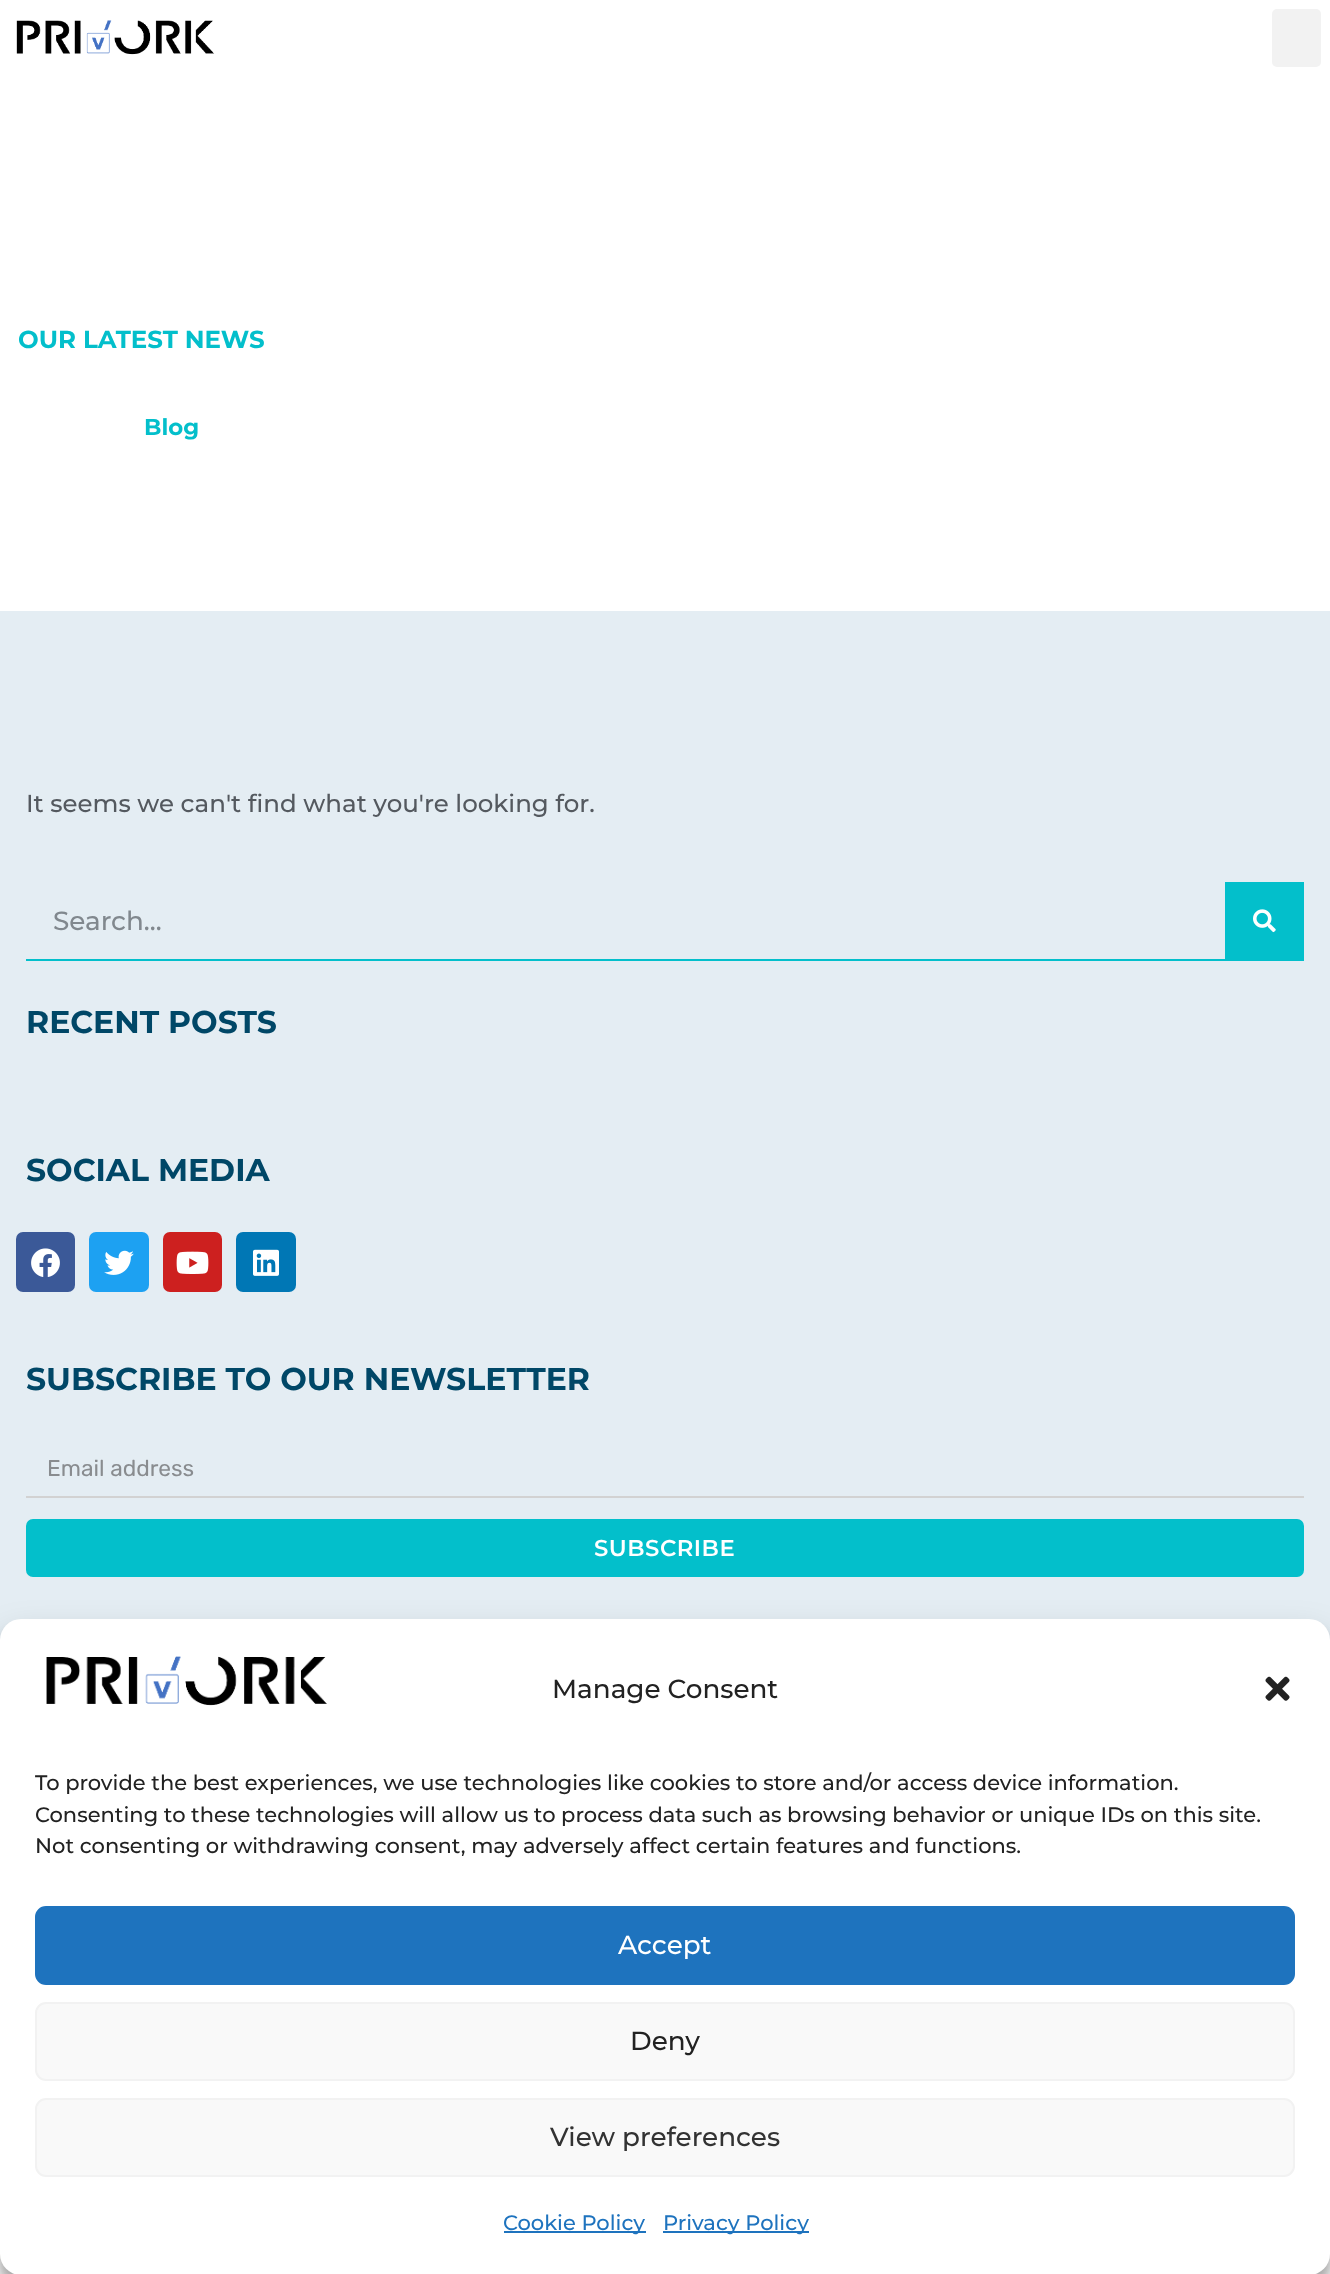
(async () => {
  const canvas = document.querySelector("canvas");
  canvas.width = 1330;
  canvas.height = 2274;
  const ctx = canvas.getContext("2d");
  ctx.miterLimit = 4;
  ctx.fontKerning = "normal";
  async function loadImage(src) {
    const img = new Image();
    img.src = src;
    await img.decode();
    return img;
  }

  ctx.fillStyle = "#ffffff";
  ctx.fillRect(0, 0, 1330, 2274);
  ctx.drawImage(await loadImage("img/1.png"), 16, 20, 199, 35);
  ctx.fillStyle = "#f2f2f2";
  ctx.beginPath();
  ctx.roundRect(1272, 9, 49, 58, 5);
  ctx.fill();
  for (const [x, y, w, h, color] of [
    [0, 611, 1330, 1029, "#e4edf3"],
    [26, 959, 1278, 2, "#03bfcb"],
    [1225, 882, 79, 77, "#03bfcb"],
  ]) {
    ctx.fillStyle = color;
    ctx.fillRect(x, y, w, h);
  }
  ctx.drawImage(await loadImage("img/2.png"), 1253, 909, 23, 24);
  ctx.fillStyle = "#3b5998";
  ctx.beginPath();
  ctx.roundRect(16, 1232, 59, 60, 7);
  ctx.fill();
  ctx.drawImage(await loadImage("img/3.png"), 31, 1248, 29, 29);
  ctx.fillStyle = "#1da1f2";
  ctx.beginPath();
  ctx.roundRect(89, 1232, 60, 60, 7);
  ctx.fill();
  ctx.drawImage(await loadImage("img/4.png"), 104, 1250, 30, 25);
  ctx.fillStyle = "#cd201f";
  ctx.beginPath();
  ctx.roundRect(163, 1232, 59, 60, 7);
  ctx.fill();
  ctx.drawImage(await loadImage("img/5.png"), 176, 1251, 33, 23);
  ctx.fillStyle = "#0077b5";
  ctx.beginPath();
  ctx.roundRect(236, 1232, 60, 60, 7);
  ctx.fill();
  ctx.drawImage(await loadImage("img/6.png"), 253, 1249, 26, 27);
  ctx.fillStyle = "#d2d2d2";
  ctx.fillRect(26, 1496, 1278, 2);
  ctx.fillStyle = "#03bfcb";
  ctx.beginPath();
  ctx.roundRect(27, 1520, 1276, 56, 6);
  ctx.fill();
  ctx.strokeStyle = "#03bfcb";
  ctx.lineWidth = 2;
  ctx.stroke();
  ctx.fillStyle = "rgba(0, 0, 0, 0.23)";
  ctx.filter = "blur(5px)";
  ctx.beginPath();
  ctx.roundRect(0, 1629, 1330, 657, 21);
  ctx.fill();
  ctx.filter = "none";
  ctx.fillStyle = "rgba(0, 0, 0, 0.19)";
  ctx.filter = "blur(17.5px)";
  ctx.beginPath();
  ctx.roundRect(0, 1636, 1330, 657, 21);
  ctx.fill();
  ctx.filter = "none";
  ctx.fillStyle = "#ffffff";
  ctx.beginPath();
  ctx.roundRect(0, 1619, 1330, 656, 21);
  ctx.fill();
  ctx.drawImage(await loadImage("img/7.png"), 46, 1656, 281, 50);
  ctx.drawImage(await loadImage("img/8.png"), 1265, 1676, 25, 25);
  ctx.fillStyle = "#1e73be";
  ctx.beginPath();
  ctx.roundRect(36, 1907, 1258, 77, 10);
  ctx.fill();
  ctx.strokeStyle = "#1e73be";
  ctx.stroke();
  ctx.fillStyle = "#f9f9f9";
  ctx.beginPath();
  ctx.roundRect(36, 2003, 1258, 77, 10);
  ctx.fill();
  ctx.strokeStyle = "#f2f2f2";
  ctx.stroke();
  ctx.beginPath();
  ctx.roundRect(36, 2099, 1258, 77, 10);
  ctx.fill();
  ctx.stroke();
  ctx.fillStyle = "#1e73be";
  ctx.fillRect(504, 2231, 142, 2);
  ctx.fillRect(663, 2231, 146, 2);
  ctx.font = "bold 24.5px Montserrat";
  ctx.fillStyle = "#03bfcb";
  ctx.fillText("OUR LATEST NEWS", 18, 348);
  ctx.font = "bold 22.75px Montserrat";
  ctx.fillText("Blog", 144, 435);
  ctx.font = "500 24.5px Montserrat";
  ctx.fillStyle = "#54595f";
  ctx.fillText("It seems we can't find what you're looking for.", 26, 812);
  ctx.font = "500 26.25px Montserrat";
  ctx.fillStyle = "#81888e";
  ctx.fillText("Search...", 53, 930);
  ctx.font = "bold 31.5px Montserrat";
  ctx.fillStyle = "#004767";
  for (const [text, x, y] of [
    ["RECENT POSTS", 26, 1033],
    ["SOCIAL MEDIA", 26, 1181],
    ["SUBSCRIBE TO OUR NEWSLETTER", 26, 1390],
  ]) {
    ctx.fillText(text, x, y);
  }
  ctx.font = "22.75px Rubik";
  ctx.fillStyle = "#898c8f";
  ctx.fillText("Email address", 47, 1476);
  ctx.letterSpacing = "0.5px";
  ctx.font = "600 22.75px Montserrat";
  ctx.fillStyle = "#ffffff";
  ctx.fillText("SUBSCRIBE", 594, 1556);
  ctx.letterSpacing = "0px";
  ctx.font = "500 26.25px Montserrat";
  ctx.fillStyle = "#222222";
  ctx.fillText("Manage Consent", 552, 1698);
  ctx.font = "500 21px Montserrat";
  for (const [text, x, y] of [
    ["To provide the best experiences, we use technologies like cookies to store and/or access device information.", 35, 1790],
    ["Consenting to these technologies will allow us to process data such as browsing behavior or unique IDs on this site.", 35, 1822],
    ["Not consenting or withdrawing consent, may adversely affect certain features and functions.", 35, 1853],
  ]) {
    ctx.fillText(text, x, y);
  }
  ctx.font = "500 26.25px Montserrat";
  ctx.fillStyle = "#ffffff";
  ctx.fillText("Accept", 618, 1954);
  ctx.fillStyle = "#222222";
  ctx.fillText("Deny", 630, 2050);
  ctx.fillStyle = "#333333";
  ctx.fillText("View preferences", 550, 2146);
  ctx.font = "500 21px Montserrat";
  ctx.fillStyle = "#1e73be";
  ctx.fillText("Cookie Policy", 503, 2230);
  ctx.fillText("Privacy Policy", 663, 2230);
})();
